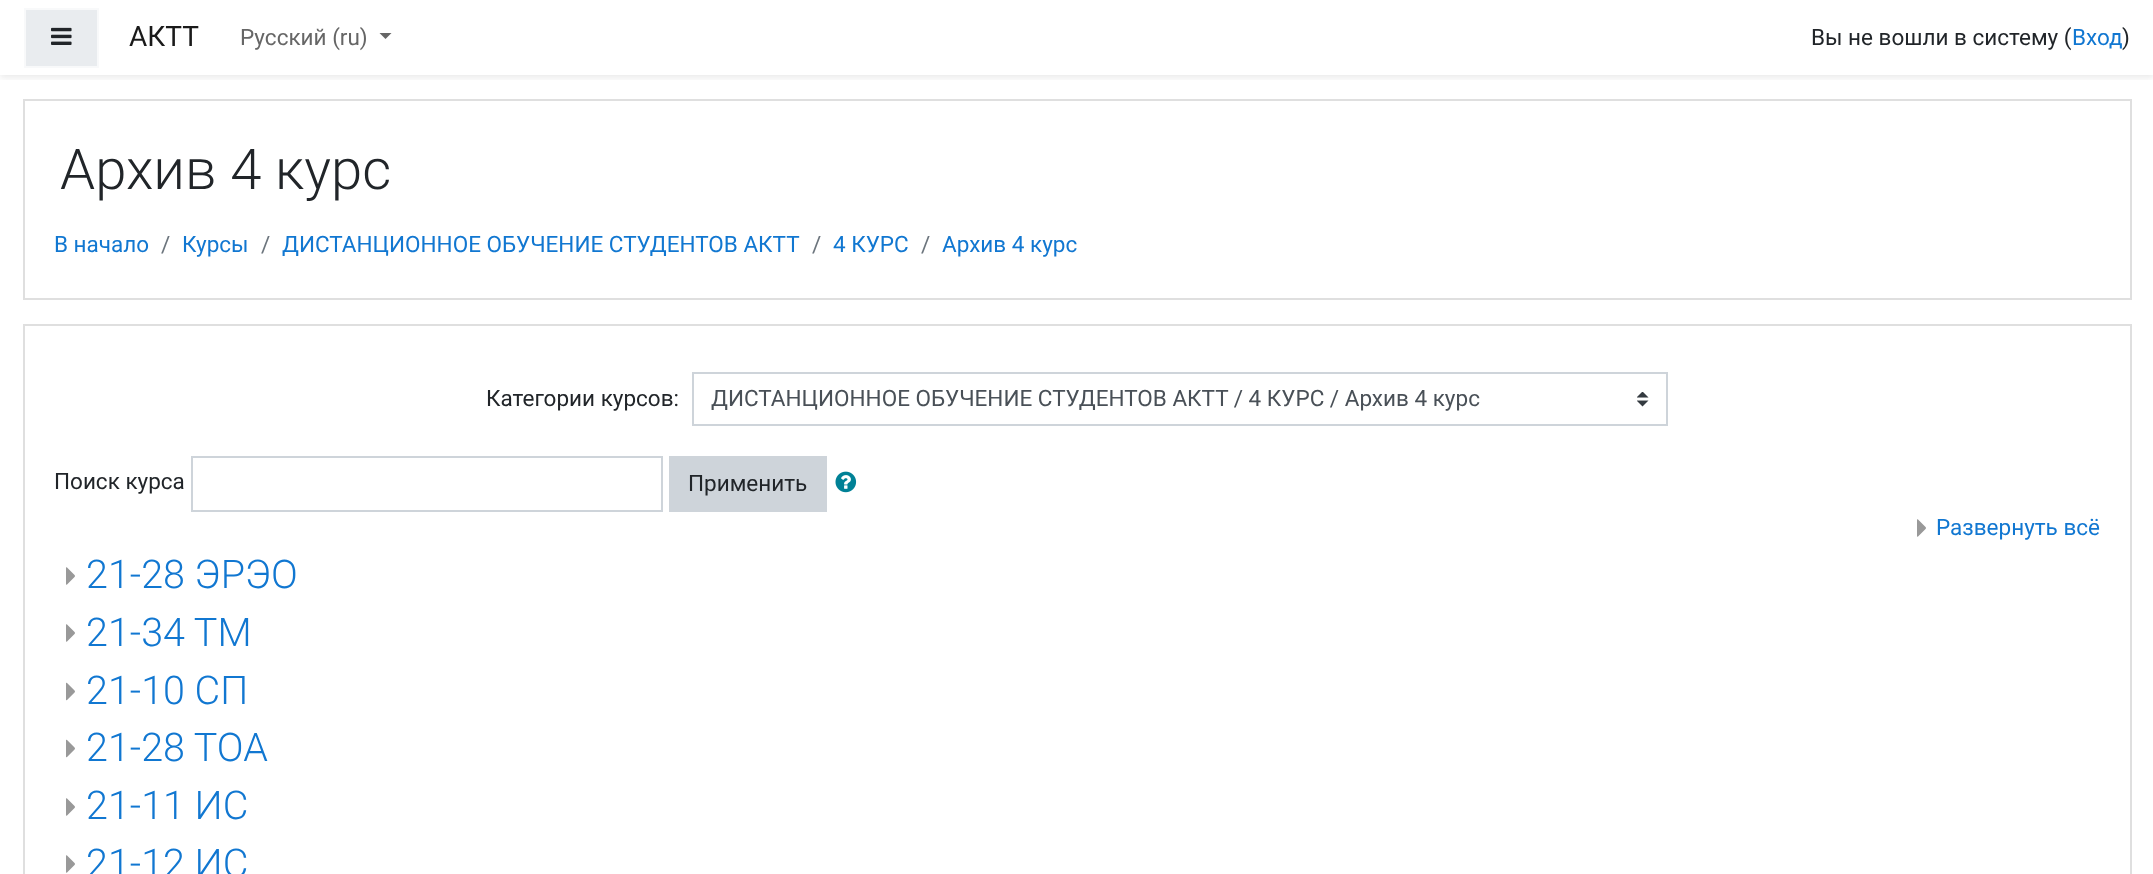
(async () => {
  const canvas = document.querySelector("canvas");
  canvas.width = 2153;
  canvas.height = 874;
  const ctx = canvas.getContext("2d");
  ctx.miterLimit = 4;
  ctx.fontKerning = "normal";
  async function loadImage(src) {
    const img = new Image();
    img.src = src;
    await img.decode();
    return img;
  }
  let path;

  ctx.fillStyle = "#ffffff";
  ctx.fillRect(0, 0, 2153, 874);
  ctx.save();
  ctx.beginPath();
  ctx.rect(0, 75, 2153, 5);
  ctx.clip();
  ctx.fillStyle = "rgba(0, 0, 0, 0.08)";
  ctx.filter = "blur(3px)";
  ctx.beginPath();
  ctx.rect(0, 3, 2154, 75);
  ctx.fill();
  ctx.filter = "none";
  ctx.restore();
  ctx.fillStyle = "#e9ecef";
  ctx.beginPath();
  ctx.rect(25, 9, 73, 58);
  ctx.fill();
  ctx.strokeStyle = "#f8f9fa";
  ctx.lineWidth = 2;
  ctx.stroke();
  ctx.drawImage(await loadImage("img/1.png"), 51, 27, 21, 18);
  ctx.fillStyle = "#666666";
  path = new Path2D("M379.5 33H391.5L385.5 39Z");
  ctx.fill(path);
  ctx.strokeStyle = "#dfdfdf";
  ctx.strokeRect(24, 100, 2107, 199);
  ctx.strokeRect(24, 325, 2107, 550);
  ctx.drawImage(await loadImage("img/2.png"), 1637, 392, 12, 15);
  ctx.strokeStyle = "#ced4da";
  ctx.strokeRect(693, 373, 974, 52);
  ctx.strokeRect(192, 457, 470, 54);
  ctx.fillStyle = "#ced4da";
  ctx.fillRect(669, 456, 158, 56);
  ctx.drawImage(await loadImage("img/3.png"), 835, 471, 22, 22);
  ctx.drawImage(await loadImage("img/4.png"), 1917, 519, 9, 18);
  ctx.drawImage(await loadImage("img/4.png"), 66, 567, 9, 18);
  ctx.drawImage(await loadImage("img/4.png"), 66, 624, 9, 18);
  ctx.drawImage(await loadImage("img/5.png"), 66, 682, 9, 19);
  ctx.drawImage(await loadImage("img/5.png"), 66, 739, 9, 19);
  ctx.drawImage(await loadImage("img/4.png"), 66, 798, 9, 18);
  ctx.drawImage(await loadImage("img/4.png"), 66, 855, 9, 18);
  ctx.font = "28px Roboto";
  ctx.fillStyle = "#1a1a1a";
  ctx.fillText("АКТТ", 129, 46);
  ctx.font = "22.5px Roboto";
  ctx.fillStyle = "#666666";
  ctx.fillText("Русский (ru)", 240, 45);
  ctx.fillStyle = "#212529";
  ctx.fillText("Вы не вошли в систему (", 1811, 45);
  ctx.fillStyle = "#1177d1";
  ctx.fillText("Вход", 2072, 45);
  ctx.fillStyle = "#212529";
  ctx.fillText(")", 2122, 45);
  ctx.font = "300 56.25px Roboto";
  ctx.fillText("Архив 4 курс", 60, 189);
  ctx.font = "22.5px Roboto";
  ctx.fillStyle = "#1177d1";
  ctx.fillText("В начало", 54, 252);
  ctx.fillStyle = "#6c757d";
  ctx.fillText("/", 161, 252);
  ctx.fillStyle = "#1177d1";
  ctx.fillText("Курсы", 182, 252);
  ctx.fillStyle = "#6c757d";
  ctx.fillText("/", 261, 252);
  ctx.fillStyle = "#1177d1";
  ctx.fillText("ДИСТАНЦИОННОЕ ОБУЧЕНИЕ СТУДЕНТОВ АКТТ", 282, 252);
  ctx.fillStyle = "#6c757d";
  ctx.fillText("/", 812, 252);
  ctx.fillStyle = "#1177d1";
  ctx.fillText("4 КУРС", 833, 252);
  ctx.fillStyle = "#6c757d";
  ctx.fillText("/", 921, 252);
  ctx.fillStyle = "#1177d1";
  ctx.fillText("Архив 4 курс", 942, 252);
  ctx.fillStyle = "#212529";
  ctx.fillText("Категории курсов:", 486, 406);
  ctx.fillStyle = "#495057";
  ctx.fillText("ДИСТАНЦИОННОЕ ОБУЧЕНИЕ СТУДЕНТОВ АКТТ / 4 КУРС / Архив 4 курс", 711, 406);
  ctx.fillStyle = "#212529";
  ctx.fillText("Поиск курса", 54, 489);
  ctx.fillText("Применить", 688, 491);
  ctx.fillStyle = "#1177d1";
  ctx.fillText("Развернуть всё", 1936, 535);
  ctx.font = "300 39.5px Roboto";
  for (const [text, x, y] of [
    ["21-28 ЭРЭО", 86, 588],
    ["21-34 ТМ", 86, 646],
    ["21-10 СП", 86, 704],
    ["21-28 ТОА", 86, 761],
    ["21-11 ИС", 86, 819],
    ["21-12 ИС", 86, 877],
  ]) {
    ctx.fillText(text, x, y);
  }
})();
